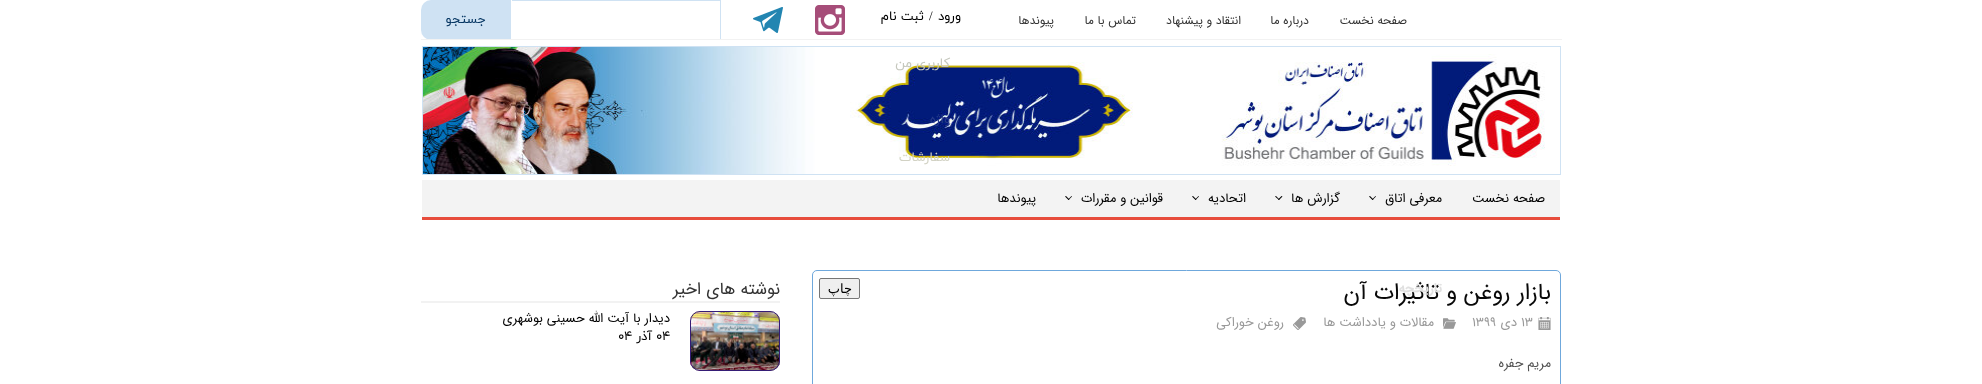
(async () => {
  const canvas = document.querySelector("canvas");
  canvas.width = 1982;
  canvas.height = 384;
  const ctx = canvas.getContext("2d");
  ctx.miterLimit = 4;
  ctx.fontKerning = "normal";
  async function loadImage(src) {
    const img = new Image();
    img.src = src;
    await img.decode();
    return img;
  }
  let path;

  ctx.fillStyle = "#ffffff";
  ctx.fillRect(0, 0, 1982, 384);
  ctx.drawImage(await loadImage("img/1.png"), 815, 5, 30, 30);
  ctx.drawImage(await loadImage("img/2.png"), 753, 7, 30, 26);
  ctx.fillStyle = "#cfe2f3";
  ctx.fillRect(512, 0, 209, 1);
  ctx.fillRect(720, 1, 1, 39);
  ctx.beginPath();
  ctx.roundRect(421, 0, 90, 40, [10, 0, 0, 10]);
  ctx.fill();
  ctx.fillStyle = "#f2f2f2";
  ctx.fillRect(421, 39, 1141, 1);
  ctx.drawImage(await loadImage("img/3.png"), 423, 47, 1122, 127);
  ctx.strokeStyle = "#cfe2f3";
  ctx.strokeRect(422.5, 46.5, 1138, 128);
  ctx.fillStyle = "#f3f3f3";
  ctx.fillRect(422, 180, 1138, 37);
  ctx.fillStyle = "#e74c3c";
  ctx.fillRect(422, 217, 1138, 3);
  ctx.fillStyle = "#000000";
  path = new Path2D("M1375.5 196L1376 196.5L1372.5 200L1372 199.5Z");
  ctx.fill(path);
  path = new Path2D("M1370 196L1373.5 199.5L1372.5 200L1369 196.5Z");
  ctx.fill(path);
  path = new Path2D("M1281.5 196L1282.5 196.5L1279 200L1278 199.5Z");
  ctx.fill(path);
  path = new Path2D("M1276 196L1279.5 199.5L1279 200L1275 196.5Z");
  ctx.fill(path);
  path = new Path2D("M1198.5 196L1199 196.5L1195.5 200L1195 199.5Z");
  ctx.fill(path);
  path = new Path2D("M1193 196L1196.5 199.5L1195.5 200L1192 196.5Z");
  ctx.fill(path);
  path = new Path2D("M1071.5 196L1072 196.5L1068.5 200L1068 199.5Z");
  ctx.fill(path);
  path = new Path2D("M1066 196L1069.5 199.5L1068.5 200L1065 196.5Z");
  ctx.fill(path);
  ctx.beginPath();
  ctx.roundRect(812.5, 270.5, 748, 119, 4.5);
  ctx.strokeStyle = "#6fa8dc";
  ctx.stroke();
  ctx.drawImage(await loadImage("img/4.png"), 1538, 317, 13, 13);
  ctx.drawImage(await loadImage("img/5.png"), 1443, 318, 13, 11);
  ctx.drawImage(await loadImage("img/6.png"), 1293, 317, 13, 13);
  ctx.fillStyle = "#efefef";
  ctx.beginPath();
  ctx.roundRect(819.5, 278.5, 40, 20, 1.5);
  ctx.fill();
  ctx.strokeStyle = "#767676";
  ctx.stroke();
  ctx.fillStyle = "#f2f2f2";
  ctx.fillRect(421, 301, 359, 2);
  ctx.drawImage(await loadImage("img/7.png"), 690, 311, 90, 60);
  ctx.beginPath();
  ctx.roundRect(690.5, 311.5, 89, 59, 9.5);
  ctx.strokeStyle = "#351c75";
  ctx.stroke();
  ctx.direction = "rtl";
  ctx.font = "12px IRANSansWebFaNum";
  ctx.fillStyle = "#333333";
  for (const [text, x, y] of [
    ["صفحه نخست", 1407, 24],
    ["درباره ما", 1309, 24],
    ["انتقاد و پیشنهاد", 1241, 24],
    ["تماس با ما", 1136, 24],
    ["پیوندها", 1054, 24],
  ]) {
    ctx.fillText(text, x, y);
  }
  ctx.font = "13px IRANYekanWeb";
  ctx.fillStyle = "#000000";
  ctx.fillText("ورود", 961, 20);
  ctx.direction = "ltr";
  ctx.font = "13px Liberation Serif";
  ctx.fillText("/", 929, 20);
  ctx.direction = "rtl";
  ctx.font = "13px IRANYekanWeb";
  ctx.fillText("ثبت نام", 924, 20);
  ctx.fillStyle = "#c5c7bd";
  ctx.fillText("کاربری من", 950, 67);
  ctx.fillStyle = "#263b8b";
  ctx.fillText("واژه", 950, 123);
  ctx.fillStyle = "#d2d2c4";
  ctx.fillText("سفارشات", 950, 161);
  ctx.fillStyle = "#073763";
  ctx.fillText("جستجو", 486, 23);
  ctx.font = "13px IRANSansWebFaNum";
  ctx.fillStyle = "#000000";
  for (const [text, x, y] of [
    ["صفحه نخست", 1545, 202],
    ["معرفی اتاق", 1442, 202],
    ["گزارش ها", 1340, 202],
    ["اتحادیه", 1246, 202],
    ["قوانین و مقررات", 1163, 202],
    ["پیوندها", 1036, 202],
  ]) {
    ctx.fillText(text, x, y);
  }
  ctx.font = "23px IRANSansWebFaNum";
  ctx.fillStyle = "#080808";
  ctx.fillText("بازار روغن و تاثیرات آن", 1551, 299);
  ctx.font = "bold 13px IRANSansWebFaNum";
  ctx.fillStyle = "#e0e0e0";
  ctx.fillText("تاریخچه", 1442, 292);
  ctx.direction = "ltr";
  ctx.font = "13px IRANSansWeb";
  ctx.fillStyle = "#999999";
  ctx.fillText("۱۳", 1521, 326);
  ctx.direction = "rtl";
  ctx.fillText("دی", 1517, 326);
  ctx.direction = "ltr";
  ctx.fillText("۱۳۹۹", 1472, 326);
  ctx.direction = "rtl";
  ctx.fillText("مقالات و یادداشت ها", 1434, 326);
  ctx.fillText("روغن خوراکی", 1284, 326);
  ctx.font = "13px IRANSansWebFaNum";
  ctx.fillStyle = "#525252";
  ctx.fillText("مریم جفره", 1551, 367);
  ctx.font = "13px DejaVu Sans";
  ctx.fillStyle = "#000000";
  ctx.fillText("چاپ", 852, 293);
  ctx.font = "17px IRANSansWeb";
  ctx.fillStyle = "#333333";
  ctx.fillText("نوشته های اخیر", 780, 294);
  ctx.font = "13px IRANSansWebFaNum";
  ctx.fillStyle = "#000000";
  ctx.fillText("دیدار با آیت الله حسینی بوشهری", 670, 322);
  ctx.direction = "ltr";
  ctx.font = "13px IRANYekanWeb";
  ctx.fillText("۰۴", 656, 340);
  ctx.direction = "rtl";
  ctx.fillText("آذر", 652, 340);
  ctx.direction = "ltr";
  ctx.fillText("۰۴", 618, 340);
})();
